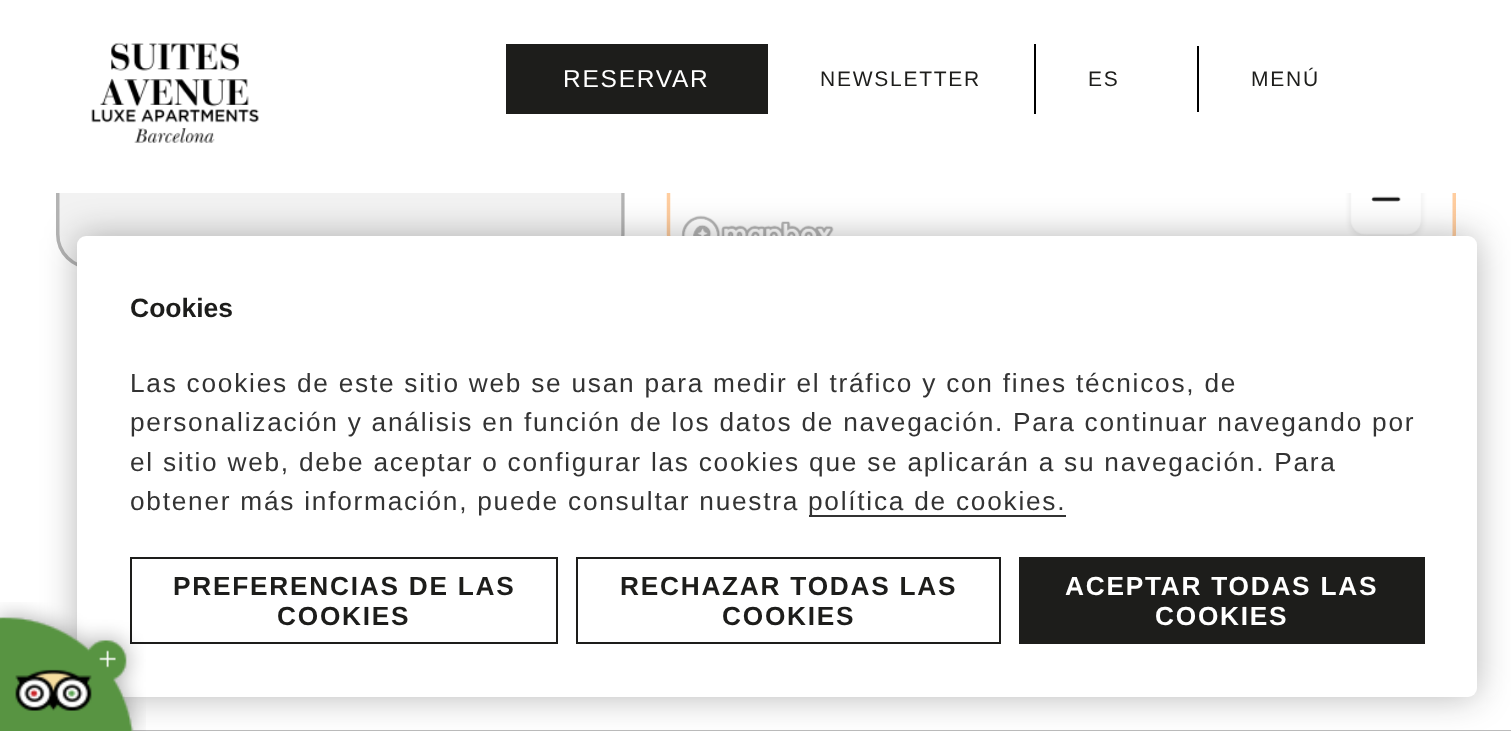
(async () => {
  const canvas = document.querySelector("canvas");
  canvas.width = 1511;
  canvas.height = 731;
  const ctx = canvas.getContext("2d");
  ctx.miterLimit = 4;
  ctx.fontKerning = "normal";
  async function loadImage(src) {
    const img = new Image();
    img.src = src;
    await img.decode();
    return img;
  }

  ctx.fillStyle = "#ffffff";
  ctx.fillRect(0, 0, 1511, 731);
  ctx.drawImage(await loadImage("img/1.png"), 91, 42, 168, 101);
  for (const [x, y, w, h, color] of [
    [506, 44, 262, 70, "#1d1d1b"],
    [1034, 44, 2, 70, "#000000"],
    [1197, 46, 2, 66, "#000000"],
  ]) {
    ctx.fillStyle = color;
    ctx.fillRect(x, y, w, h);
  }
  ctx.drawImage(await loadImage("img/2.png"), 56, 193, 1400, 74);
  ctx.fillStyle = "#bbbbbb";
  ctx.fillRect(130, 730, 1381, 1);
  ctx.fillStyle = "rgba(17, 17, 17, 0.3)";
  ctx.filter = "blur(17.5px)";
  ctx.beginPath();
  ctx.roundRect(77, 236, 1400, 461, 9);
  ctx.fill();
  ctx.filter = "none";
  ctx.fillStyle = "#ffffff";
  ctx.beginPath();
  ctx.roundRect(77, 236, 1400, 461, 9);
  ctx.fill();
  ctx.fillStyle = "#333333";
  ctx.fillRect(809, 515, 257, 2);
  ctx.strokeStyle = "#1d1d1b";
  ctx.lineWidth = 2;
  ctx.strokeRect(131, 558, 426, 85);
  ctx.strokeRect(577, 558, 423, 85);
  ctx.fillStyle = "#1d1d1b";
  ctx.fillRect(1019, 557, 406, 87);
  ctx.drawImage(await loadImage("img/3.png"), 0, 602, 146, 129);
  ctx.letterSpacing = "1.75px";
  ctx.font = "24.5px Liberation Sans";
  ctx.fillStyle = "#ffffff";
  ctx.fillText("RESERVAR", 563, 87);
  ctx.font = "21px Liberation Sans";
  ctx.fillStyle = "#1d1d1b";
  for (const [text, x, y] of [
    ["NEWSLETTER", 820, 86],
    ["ES", 1088, 86],
    ["MENÚ", 1251, 86],
  ]) {
    ctx.fillText(text, x, y);
  }
  ctx.letterSpacing = "0px";
  ctx.font = "bold 26.5px Liberation Sans";
  ctx.fillText("Cookies", 130, 317);
  ctx.letterSpacing = "1.75px";
  ctx.font = "26.25px Liberation Sans";
  ctx.fillStyle = "#333333";
  for (const [text, x, y] of [
    ["Las cookies de este sitio web se usan para medir el tráfico y con fines técnicos, de", 130, 392],
    ["personalización y análisis en función de los datos de navegación. Para continuar navegando por", 130, 431],
    ["el sitio web, debe aceptar o configurar las cookies que se aplicarán a su navegación. Para", 130, 471],
    ["obtener más información, puede consultar nuestra", 130, 510],
    ["política de cookies.", 808, 510],
  ]) {
    ctx.fillText(text, x, y);
  }
  ctx.font = "bold 26.25px Liberation Sans";
  ctx.fillStyle = "#1d1d1b";
  for (const [text, x, y] of [
    ["PREFERENCIAS DE LAS", 173, 595],
    ["COOKIES", 277, 625],
    ["RECHAZAR TODAS LAS", 620, 595],
    ["COOKIES", 722, 625],
  ]) {
    ctx.fillText(text, x, y);
  }
  ctx.fillStyle = "#ffffff";
  ctx.fillText("ACEPTAR TODAS LAS", 1065, 595);
  ctx.fillText("COOKIES", 1155, 625);
})();
